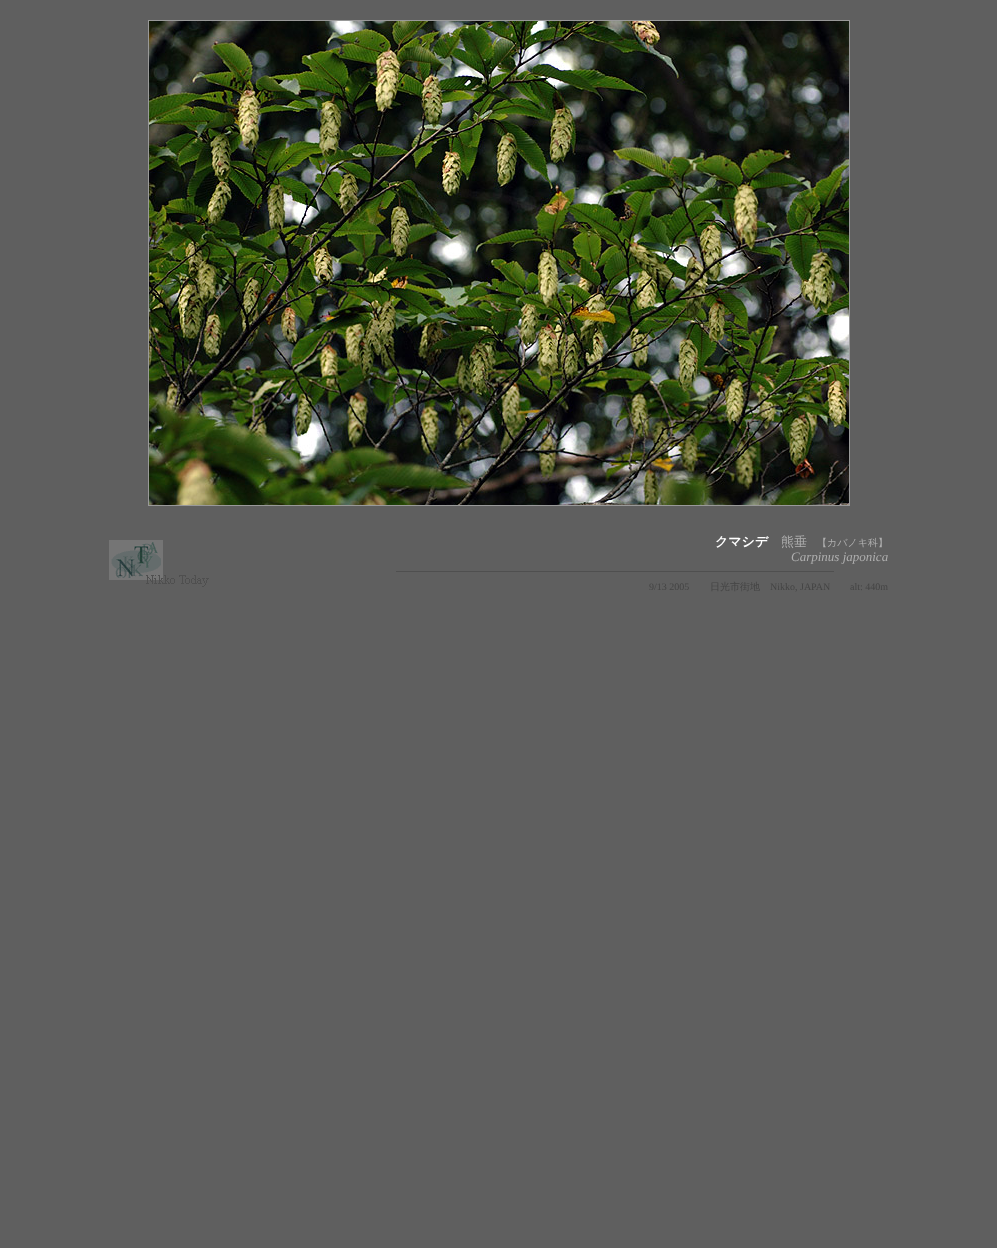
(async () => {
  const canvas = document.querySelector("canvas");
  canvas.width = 997;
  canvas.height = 1248;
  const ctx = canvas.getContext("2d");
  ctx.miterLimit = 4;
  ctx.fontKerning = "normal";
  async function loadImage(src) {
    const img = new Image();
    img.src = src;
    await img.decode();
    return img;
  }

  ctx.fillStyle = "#5f5f5f";
  ctx.fillRect(0, 0, 997, 1248);
  ctx.fillStyle = "#999999";
  ctx.fillRect(148, 20, 702, 486);
  ctx.drawImage(await loadImage("img/1.png"), 149, 21, 700, 484);
  ctx.drawImage(await loadImage("img/2.png"), 109, 540, 100, 47);
  ctx.fillStyle = "#4f4f4f";
  ctx.fillRect(396, 571, 438, 1);
  ctx.font = "bold 13px WenQuanYi Zen Hei";
  ctx.fillStyle = "#ffffff";
  ctx.fillText("クマシデ", 715, 546);
  ctx.font = "500 13px WenQuanYi Zen Hei";
  ctx.fillStyle = "#afafaf";
  ctx.fillText("熊垂", 781, 546);
  ctx.font = "500 10px WenQuanYi Zen Hei";
  ctx.fillText("【カバノキ科】", 817, 546);
  ctx.font = "italic 13px Liberation Serif";
  ctx.fillText("Carpinus japonica", 791, 561);
  ctx.font = "10px Liberation Serif";
  ctx.fillStyle = "#444444";
  ctx.fillText("9/13 2005", 649, 590);
  ctx.font = "500 10px WenQuanYi Zen Hei";
  ctx.fillText("日光市街地", 710, 590);
  ctx.font = "10px Liberation Serif";
  ctx.fillText("Nikko, JAPAN", 770, 590);
  ctx.fillText("alt: 440m", 850, 590);
})();
